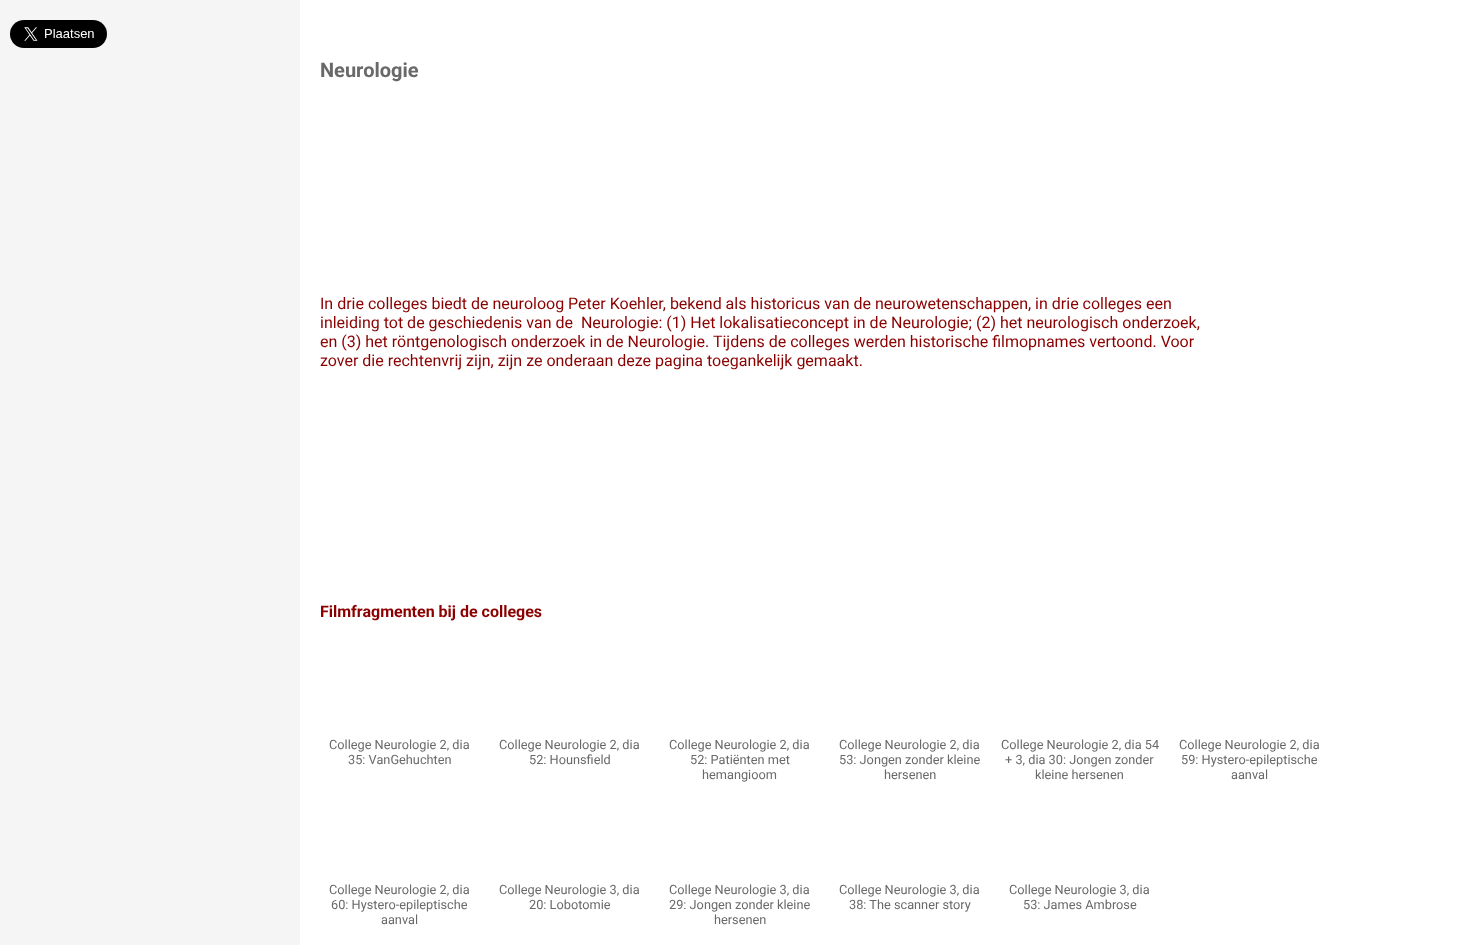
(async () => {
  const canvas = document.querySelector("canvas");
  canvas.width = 1478;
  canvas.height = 945;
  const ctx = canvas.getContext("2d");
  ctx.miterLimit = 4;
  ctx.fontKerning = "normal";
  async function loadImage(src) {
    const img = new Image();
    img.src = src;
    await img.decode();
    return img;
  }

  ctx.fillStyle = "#f5f5f5";
  ctx.fillRect(0, 0, 1478, 945);
  ctx.drawImage(await loadImage("img/1.png"), 10, 20, 97, 28);
  ctx.fillStyle = "#ffffff";
  ctx.fillRect(300, 0, 1178, 945);
  ctx.font = "bold 20px Roboto";
  ctx.fillStyle = "#696969";
  ctx.fillText("Neurologie", 320, 77);
  ctx.font = "16px Roboto";
  ctx.fillStyle = "#8b0000";
  for (const [text, x, y] of [
    ["In drie colleges biedt de neuroloog Peter Koehler, bekend als historicus van de neurowetenschappen, in drie colleges een", 320, 309],
    ["inleiding tot de geschiedenis van de  Neurologie: (1) Het lokalisatieconcept in de Neurologie; (2) het neurologisch onderzoek,", 320, 328],
    ["en (3) het röntgenologisch onderzoek in de Neurologie. Tijdens de colleges werden historische filmopnames vertoond. Voor", 320, 347],
    ["zover die rechtenvrij zijn, zijn ze onderaan deze pagina toegankelijk gemaakt.", 320, 366],
  ]) {
    ctx.fillText(text, x, y);
  }
  ctx.font = "bold 16px Roboto";
  ctx.fillText("Filmfragmenten bij de colleges", 320, 617);
  ctx.font = "12.75px Roboto";
  ctx.fillStyle = "#696969";
  for (const [text, x, y] of [
    ["College Neurologie 2, dia", 329, 749],
    ["35: VanGehuchten", 348, 764],
    ["College Neurologie 2, dia", 499, 749],
    ["52: Hounsfield", 529, 764],
    ["College Neurologie 2, dia", 669, 749],
    ["52: Patiënten met", 690, 764],
    ["hemangioom", 702, 779],
    ["College Neurologie 2, dia", 839, 749],
    ["53: Jongen zonder kleine", 839, 764],
    ["hersenen", 884, 779],
    ["College Neurologie 2, dia 54", 1001, 749],
    ["+ 3, dia 30: Jongen zonder", 1005, 764],
    ["kleine hersenen", 1035, 779],
    ["College Neurologie 2, dia", 1179, 749],
    ["59: Hystero-epileptische", 1181, 764],
    ["aanval", 1231, 779],
    ["College Neurologie 2, dia", 329, 894],
    ["60: Hystero-epileptische", 331, 909],
    ["aanval", 381, 924],
    ["College Neurologie 3, dia", 499, 894],
    ["20: Lobotomie", 529, 909],
    ["College Neurologie 3, dia", 669, 894],
    ["29: Jongen zonder kleine", 669, 909],
    ["hersenen", 714, 924],
    ["College Neurologie 3, dia", 839, 894],
    ["38: The scanner story", 849, 909],
    ["College Neurologie 3, dia", 1009, 894],
    ["53: James Ambrose", 1023, 909],
  ]) {
    ctx.fillText(text, x, y);
  }
})();
